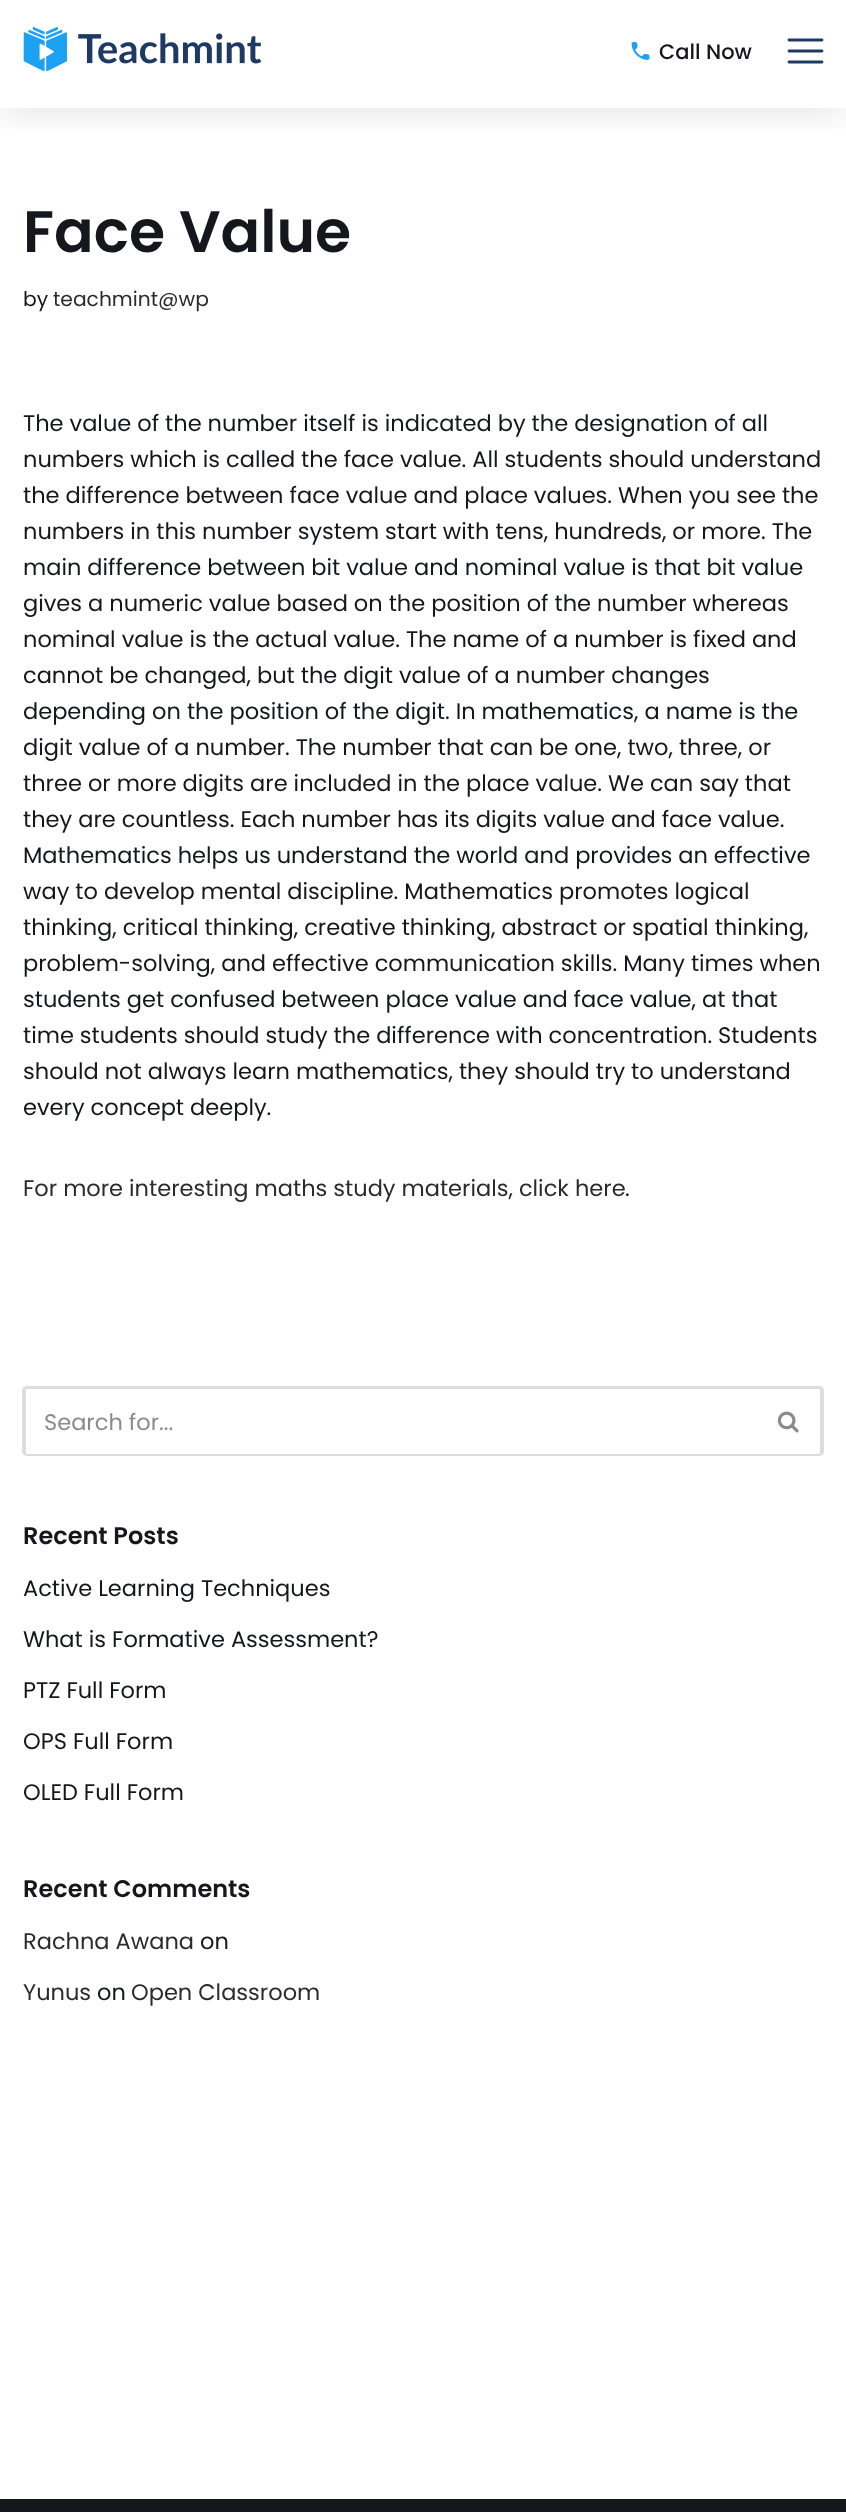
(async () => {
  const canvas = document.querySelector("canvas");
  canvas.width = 846;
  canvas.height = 2512;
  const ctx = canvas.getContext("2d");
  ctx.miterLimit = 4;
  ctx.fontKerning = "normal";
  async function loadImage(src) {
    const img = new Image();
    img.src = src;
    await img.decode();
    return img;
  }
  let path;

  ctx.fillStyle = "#ffffff";
  ctx.fillRect(0, 0, 846, 2512);
  ctx.save();
  ctx.beginPath();
  ctx.rect(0, 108, 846, 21);
  ctx.clip();
  ctx.fillStyle = "rgba(0, 0, 0, 0.1)";
  ctx.filter = "blur(19.5px)";
  ctx.beginPath();
  ctx.rect(0, 5, 846, 108);
  ctx.fill();
  ctx.filter = "none";
  ctx.restore();
  ctx.drawImage(await loadImage("img/1.png"), 23, 27, 239, 45);
  ctx.drawImage(await loadImage("img/2.png"), 631, 42, 19, 18);
  path = new Path2D("M789 51H822M789 40H822M789 62H822");
  ctx.strokeStyle = "#1f3965";
  ctx.lineWidth = 2.8;
  ctx.lineCap = "round";
  ctx.lineJoin = "round";
  ctx.stroke(path);
  ctx.fillStyle = "#dddddd";
  path = new Path2D("M27 1386H756V1456H27C25 1456 22 1454 22 1452V1390C22 1388 25 1386 27 1386ZM27 1389H756V1454H27C26 1454 26 1453 26 1452V1390C26 1390 26 1389 27 1389Z");
  ctx.fill(path, "evenodd");
  path = new Path2D("M756 1386H819C821 1386 824 1388 824 1390V1452C824 1454 821 1456 819 1456H756ZM756 1389H819C820 1389 820 1390 820 1390V1452C820 1453 820 1454 819 1454H756Z");
  ctx.fill(path, "evenodd");
  ctx.drawImage(await loadImage("img/3.png"), 777, 1411, 22, 22);
  ctx.fillStyle = "#14171c";
  ctx.fillRect(0, 2499, 846, 13);
  ctx.font = "500 21px Poppins";
  ctx.fillText("Call Now", 659, 59);
  ctx.font = "600 58.5px Poppins";
  ctx.fillText("Face Value", 23, 252);
  ctx.font = "20.25px Poppins";
  ctx.fillText("by", 23, 306);
  ctx.fillStyle = "#2b2b2b";
  ctx.fillText("teachmint@wp", 53, 306);
  ctx.font = "22.5px Poppins";
  ctx.fillStyle = "#14171c";
  for (const [text, x, y] of [
    ["The value of the number itself is indicated by the designation of all", 23, 431],
    ["numbers which is called the face value. All students should understand", 23, 467],
    ["the difference between face value and place values. When you see the", 23, 503],
    ["numbers in this number system start with tens, hundreds, or more. The", 23, 539],
    ["main difference between bit value and nominal value is that bit value", 23, 575],
    ["gives a numeric value based on the position of the number whereas", 23, 611],
    ["nominal value is the actual value. The name of a number is fixed and", 23, 647],
    ["cannot be changed, but the digit value of a number changes", 23, 683],
    ["depending on the position of the digit. In mathematics, a name is the", 23, 719],
    ["digit value of a number. The number that can be one, two, three, or", 23, 755],
    ["three or more digits are included in the place value. We can say that", 23, 791],
    ["they are countless. Each number has its digits value and face value.", 23, 827],
    ["Mathematics helps us understand the world and provides an effective", 23, 863],
    ["way to develop mental discipline. Mathematics promotes logical", 23, 899],
    ["thinking, critical thinking, creative thinking, abstract or spatial thinking,", 23, 935],
    ["problem-solving, and effective communication skills. Many times when", 23, 971],
    ["students get confused between place value and face value, at that", 23, 1007],
    ["time students should study the difference with concentration. Students", 23, 1043],
    ["should not always learn mathematics, they should try to understand", 23, 1079],
    ["every concept deeply.", 23, 1115],
  ]) {
    ctx.fillText(text, x, y);
  }
  ctx.fillStyle = "#2b2b2b";
  ctx.fillText("For more interesting maths study materials, click here", 23, 1196);
  ctx.fillStyle = "#14171c";
  ctx.fillText(".", 625, 1196);
  ctx.fillStyle = "#8a8b8e";
  ctx.fillText("Search for...", 44, 1430);
  ctx.font = "600 24px Poppins";
  ctx.fillStyle = "#14171c";
  ctx.fillText("Recent Posts", 23, 1544);
  ctx.font = "22.5px Poppins";
  for (const [text, x, y] of [
    ["Active Learning Techniques", 23, 1596],
    ["What is Formative Assessment?", 23, 1647],
    ["PTZ Full Form", 23, 1698],
    ["OPS Full Form", 23, 1749],
    ["OLED Full Form", 23, 1800],
  ]) {
    ctx.fillText(text, x, y);
  }
  ctx.font = "600 24px Poppins";
  ctx.fillText("Recent Comments", 23, 1897);
  ctx.font = "22.5px Poppins";
  ctx.fillStyle = "#2b2b2b";
  ctx.fillText("Rachna Awana", 23, 1949);
  ctx.fillStyle = "#14171c";
  ctx.fillText("on", 200, 1949);
  ctx.fillStyle = "#2b2b2b";
  ctx.fillText("Yunus", 23, 2000);
  ctx.fillStyle = "#14171c";
  ctx.fillText("on", 97, 2000);
  ctx.fillStyle = "#2b2b2b";
  ctx.fillText("Open Classroom", 131, 2000);
})();
